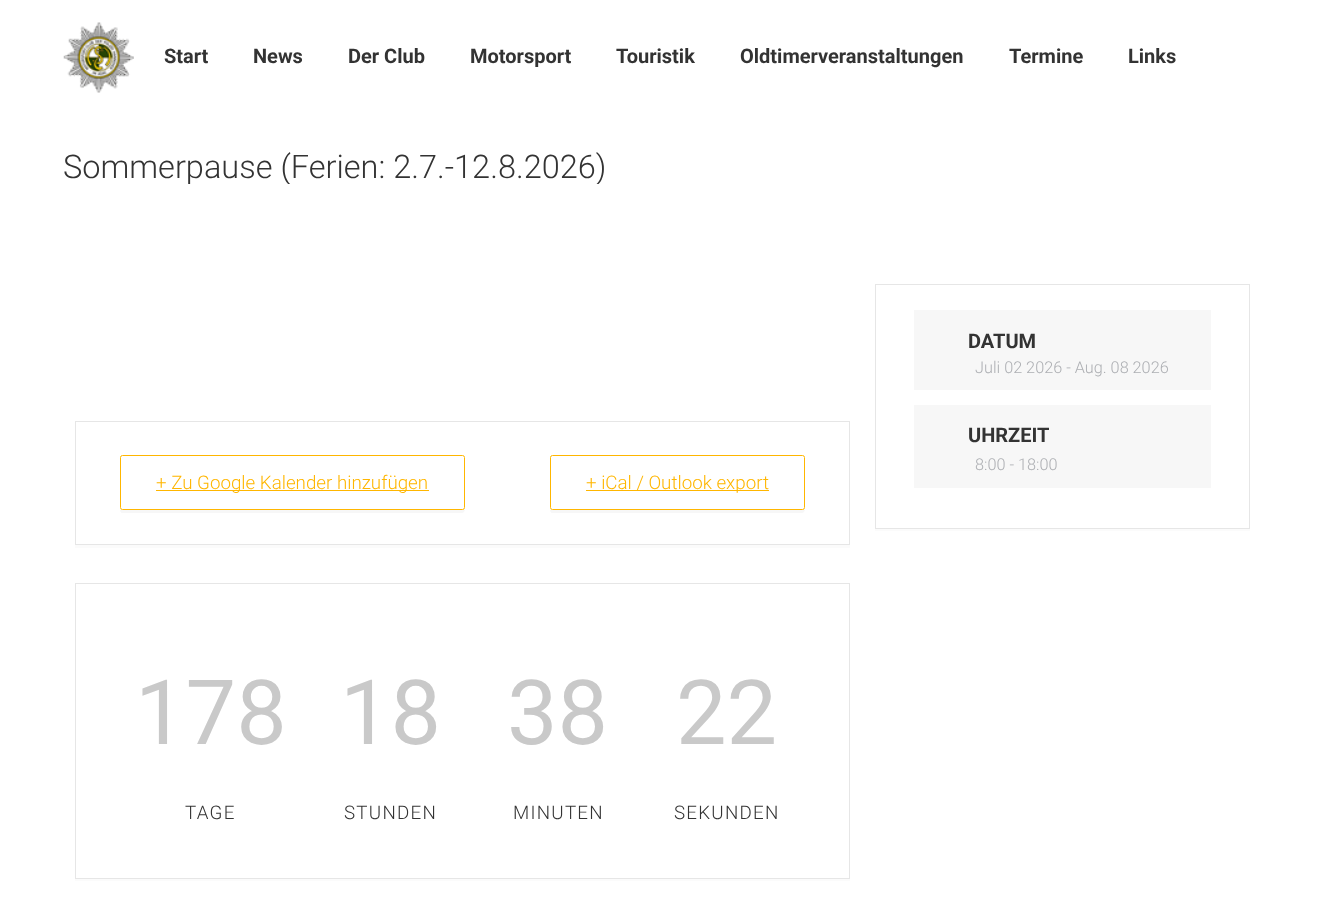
(async () => {
  const canvas = document.querySelector("canvas");
  canvas.width = 1324;
  canvas.height = 912;
  const ctx = canvas.getContext("2d");
  ctx.miterLimit = 4;
  ctx.fontKerning = "normal";
  async function loadImage(src) {
    const img = new Image();
    img.src = src;
    await img.decode();
    return img;
  }
  let path;

  ctx.fillStyle = "#ffffff";
  ctx.fillRect(0, 0, 1324, 912);
  ctx.drawImage(await loadImage("img/1.png"), 63, 22, 71, 71);
  ctx.fillStyle = "#fbfbfb";
  ctx.fillRect(875, 529, 375, 2);
  ctx.strokeStyle = "#e6e6e6";
  ctx.strokeRect(875.5, 284.5, 374, 244);
  for (const [x, y, w, h, color] of [
    [914, 310, 297, 80, "#f7f7f7"],
    [914, 405, 297, 83, "#f7f7f7"],
    [75, 545, 775, 3, "#fbfbfb"],
  ]) {
    ctx.fillStyle = color;
    ctx.fillRect(x, y, w, h);
  }
  ctx.strokeRect(75.5, 421.5, 774, 123);
  ctx.fillStyle = "#f7f7f7";
  path = new Path2D("M120 508C120 509 120 513 122 513H462C465 513 465 509 465 508C465 509 464 510 462 510H122C121 510 120 509 120 508Z");
  ctx.fill(path);
  ctx.beginPath();
  ctx.roundRect(120.5, 455.5, 344, 54, 2);
  ctx.strokeStyle = "#ffb600";
  ctx.stroke();
  ctx.fillStyle = "#ffb600";
  ctx.fillRect(156, 490, 273, 1);
  ctx.fillStyle = "#f7f7f7";
  path = new Path2D("M550 508C550 509 550 513 552 513H802C805 513 805 509 805 508C805 509 804 510 802 510H552C551 510 550 509 550 508Z");
  ctx.fill(path);
  ctx.beginPath();
  ctx.roundRect(550.5, 455.5, 254, 54, 2);
  ctx.stroke();
  ctx.fillStyle = "#ffb600";
  ctx.fillRect(586, 490, 183, 1);
  ctx.fillStyle = "#fbfbfb";
  ctx.fillRect(75, 879, 775, 2);
  ctx.strokeStyle = "#e6e6e6";
  ctx.strokeRect(75.5, 583.5, 774, 295);
  ctx.font = "bold 20px Roboto";
  ctx.fillStyle = "#333333";
  for (const [text, x, y] of [
    ["Start", 164, 63],
    ["News", 253, 63],
    ["Der Club", 348, 63],
    ["Motorsport", 470, 63],
    ["Touristik", 616, 63],
    ["Oldtimerveranstaltungen", 740, 63],
    ["Termine", 1009, 63],
    ["Links", 1128, 63],
  ]) {
    ctx.fillText(text, x, y);
  }
  ctx.save();
  ctx.beginPath();
  ctx.rect(63, 150, 543, 34);
  ctx.clip();
  ctx.font = "300 32.5px Roboto";
  ctx.fillText("Sommerpause (Ferien: 2.7.-12.8.2026)", 63, 178);
  ctx.restore();
  ctx.fillText("DATUM", 968, 348);
  ctx.font = "300 16.25px Roboto";
  ctx.fillStyle = "#adafb3";
  ctx.fillText("Juli 02 2026 - Aug. 08 2026", 975, 373);
  ctx.font = "bold 20px Roboto";
  ctx.fillStyle = "#333333";
  ctx.fillText("UHRZEIT", 968, 442);
  ctx.font = "300 16.25px Roboto";
  ctx.fillStyle = "#adafb3";
  ctx.fillText("8:00 - 18:00", 975, 470);
  ctx.font = "300 18.75px Roboto";
  ctx.fillStyle = "#ffb600";
  ctx.fillText("+ Zu Google Kalender hinzufügen", 156, 489);
  ctx.fillText("+ iCal / Outlook export", 586, 489);
  ctx.font = "90px Roboto";
  ctx.fillStyle = "#c9c9c9";
  ctx.fillText("178", 135, 744);
  ctx.letterSpacing = "1.25px";
  ctx.font = "300 18.75px Roboto";
  ctx.fillStyle = "#333333";
  ctx.fillText("TAGE", 185, 819);
  ctx.letterSpacing = "0px";
  ctx.font = "90px Roboto";
  ctx.fillStyle = "#c9c9c9";
  ctx.fillText("18", 340, 744);
  ctx.letterSpacing = "1.25px";
  ctx.font = "300 18.75px Roboto";
  ctx.fillStyle = "#333333";
  ctx.fillText("STUNDEN", 344, 819);
  ctx.letterSpacing = "0px";
  ctx.font = "90px Roboto";
  ctx.fillStyle = "#c9c9c9";
  ctx.fillText("38", 507, 744);
  ctx.letterSpacing = "1.25px";
  ctx.font = "300 18.75px Roboto";
  ctx.fillStyle = "#333333";
  ctx.fillText("MINUTEN", 513, 819);
  ctx.letterSpacing = "0px";
  ctx.font = "90px Roboto";
  ctx.fillStyle = "#c9c9c9";
  ctx.fillText("22", 676, 744);
  ctx.letterSpacing = "1.25px";
  ctx.font = "300 18.75px Roboto";
  ctx.fillStyle = "#333333";
  ctx.fillText("SEKUNDEN", 674, 819);
})();
